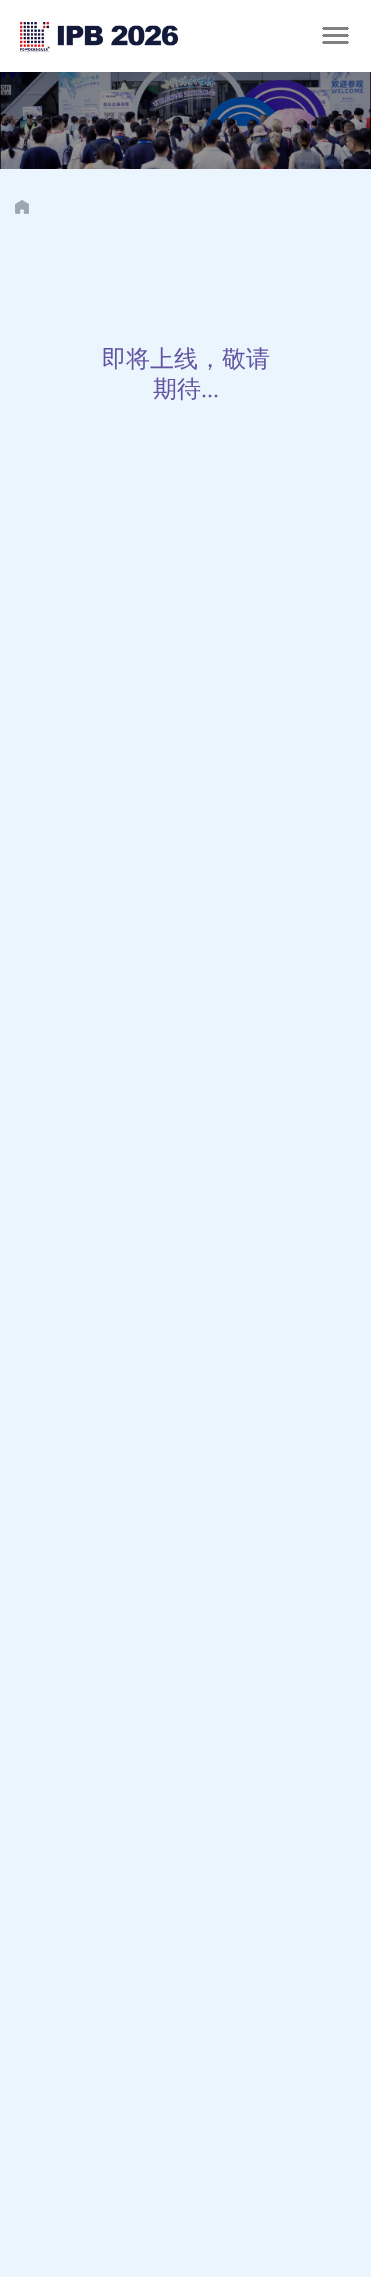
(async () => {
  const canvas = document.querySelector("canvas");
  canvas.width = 371;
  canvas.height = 2277;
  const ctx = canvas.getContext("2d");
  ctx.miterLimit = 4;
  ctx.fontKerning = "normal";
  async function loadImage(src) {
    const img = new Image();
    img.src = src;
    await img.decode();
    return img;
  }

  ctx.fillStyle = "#eaf5fd";
  ctx.fillRect(0, 0, 371, 2277);
  ctx.drawImage(await loadImage("img/3.png"), 0, 72, 371, 97);
  ctx.fillStyle = "rgba(0, 0, 0, 0.1)";
  ctx.filter = "blur(10px)";
  ctx.beginPath();
  ctx.rect(0, 0, 371, 72);
  ctx.fill();
  ctx.filter = "none";
  ctx.fillStyle = "#ffffff";
  ctx.fillRect(0, 0, 371, 72);
  ctx.drawImage(await loadImage("img/1.png"), 20, 22, 158, 30);
  ctx.drawImage(await loadImage("img/2.png"), 322, 27, 27, 17);
  ctx.drawImage(await loadImage("img/4.png"), 15, 200, 14, 14);
  ctx.font = "500 24px WenQuanYi Zen Hei";
  ctx.fillStyle = "#6354a2";
  ctx.fillText("即将上线，敬请", 102, 367);
  ctx.fillText("期待", 153, 397);
  ctx.font = "24px Liberation Serif";
  ctx.fillText("...", 201, 397);
})();
